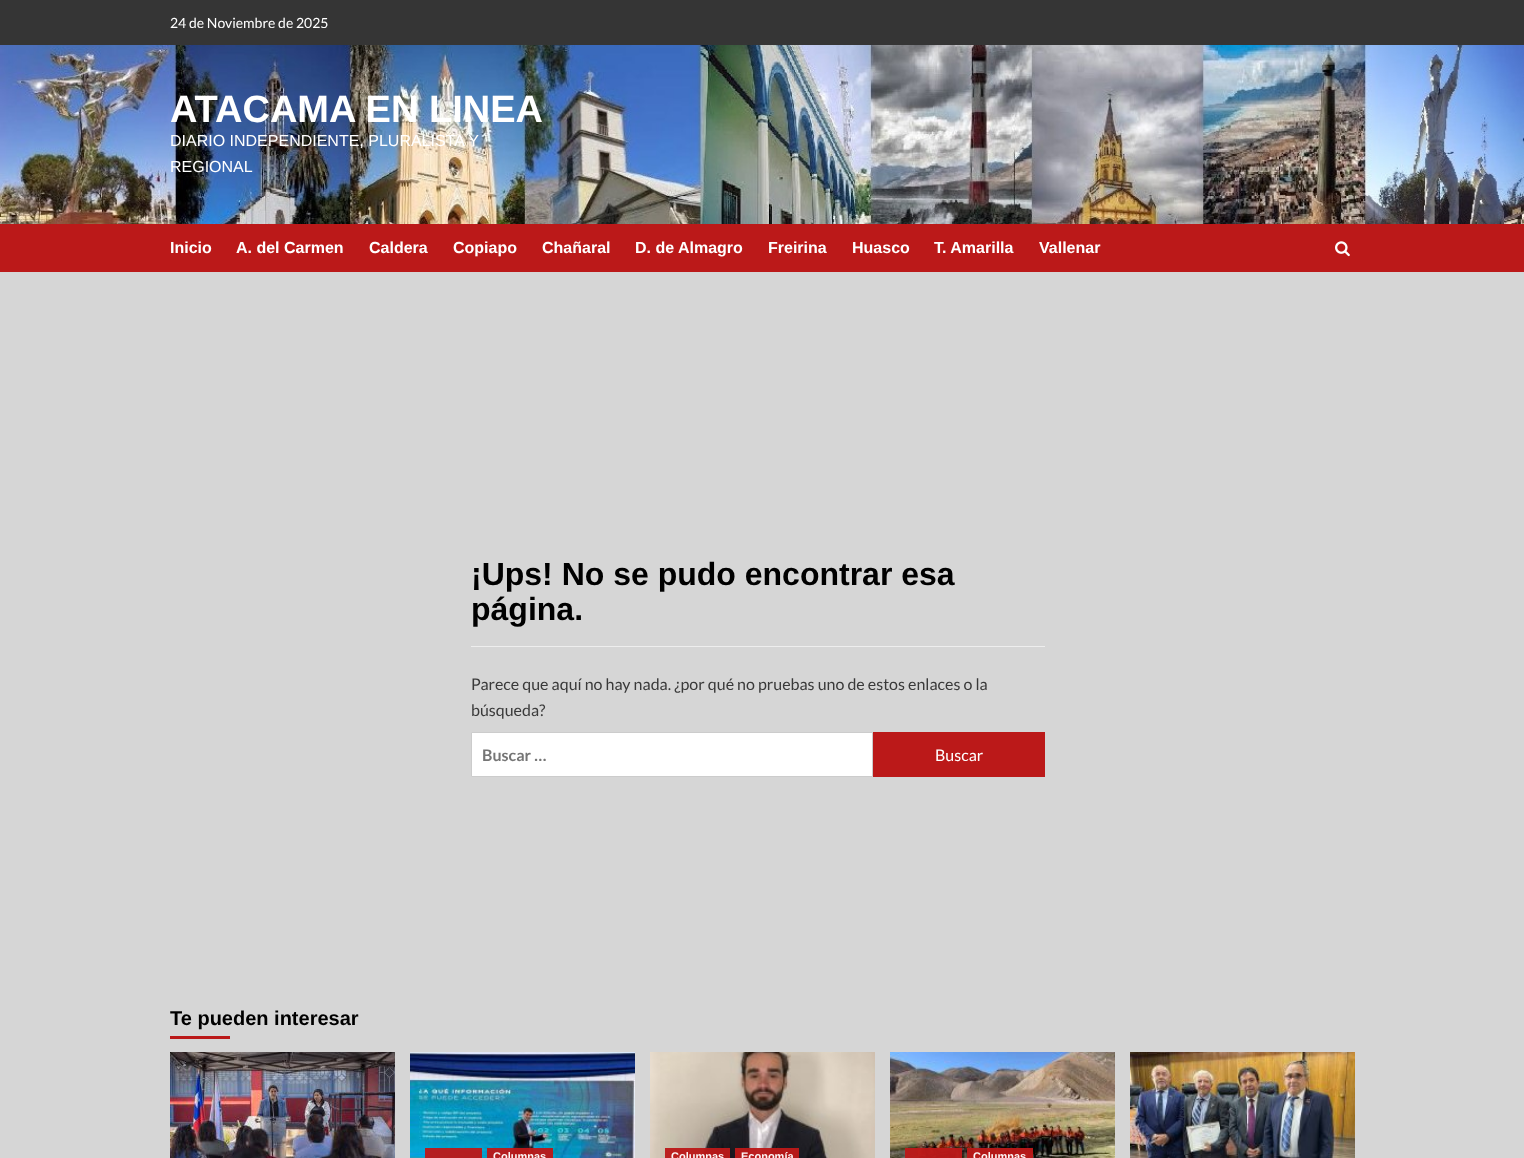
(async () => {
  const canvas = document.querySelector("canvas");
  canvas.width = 1524;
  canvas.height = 1158;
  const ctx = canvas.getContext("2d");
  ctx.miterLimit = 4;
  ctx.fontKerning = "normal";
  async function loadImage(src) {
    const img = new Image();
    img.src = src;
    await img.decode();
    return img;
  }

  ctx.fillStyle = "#d6d6d6";
  ctx.fillRect(0, 0, 1524, 1158);
  ctx.fillStyle = "#353535";
  ctx.fillRect(0, 0, 1524, 45);
  ctx.drawImage(await loadImage("img/1.png"), 0, 45, 1524, 179);
  ctx.fillStyle = "#bb1919";
  ctx.fillRect(0, 224, 1524, 48);
  ctx.drawImage(await loadImage("img/2.png"), 1335, 241, 15, 16);
  ctx.fillStyle = "#eeeeee";
  ctx.fillRect(471, 646, 574, 1);
  ctx.fillStyle = "#ffffff";
  ctx.beginPath();
  ctx.rect(471.5, 732.5, 401, 44);
  ctx.fill();
  ctx.strokeStyle = "#cccccc";
  ctx.stroke();
  ctx.fillStyle = "#bb1919";
  ctx.fillRect(873, 732, 172, 45);
  ctx.fillRect(170, 1036, 60, 3);
  ctx.drawImage(await loadImage("img/3.png"), 170, 1052, 225, 106);
  ctx.drawImage(await loadImage("img/4.png"), 410, 1052, 225, 106);
  ctx.fillStyle = "rgba(187, 25, 25, 0.96)";
  ctx.fillRect(425, 1148, 57, 10);
  ctx.fillRect(487, 1148, 66, 10);
  ctx.drawImage(await loadImage("img/5.png"), 650, 1052, 225, 106);
  ctx.fillRect(665, 1148, 65, 10);
  ctx.fillRect(735, 1148, 64, 10);
  ctx.drawImage(await loadImage("img/6.png"), 890, 1052, 225, 106);
  ctx.fillRect(905, 1148, 57, 10);
  ctx.fillRect(967, 1148, 66, 10);
  ctx.drawImage(await loadImage("img/7.png"), 1130, 1052, 225, 106);
  ctx.font = "14px Lato";
  ctx.fillStyle = "#ffffff";
  ctx.fillText("24 de Noviembre de 2025", 170, 28);
  ctx.font = "bold 38px Liberation Sans";
  ctx.fillText("ATACAMA EN LINEA", 170, 122);
  ctx.font = "16px Liberation Sans";
  ctx.fillText("DIARIO INDEPENDIENTE, PLURALISTA Y", 170, 146);
  ctx.fillText("REGIONAL", 170, 172);
  ctx.font = "bold 16px Liberation Sans";
  for (const [text, x, y] of [
    ["Inicio", 170, 253],
    ["A. del Carmen", 236, 253],
    ["Caldera", 369, 253],
    ["Copiapo", 453, 253],
    ["Chañaral", 542, 253],
    ["D. de Almagro", 635, 253],
    ["Freirina", 768, 253],
    ["Huasco", 852, 253],
    ["T. Amarilla", 934, 253],
    ["Vallenar", 1039, 253],
  ]) {
    ctx.fillText(text, x, y);
  }
  ctx.font = "bold 32px Liberation Sans";
  ctx.fillStyle = "#000000";
  ctx.fillText("¡Ups! No se pudo encontrar esa", 471, 585);
  ctx.fillText("página.", 471, 620);
  ctx.font = "16px Lato";
  ctx.fillStyle = "#3a3a3a";
  ctx.fillText("Parece que aquí no hay nada. ¿por qué no pruebas uno de estos enlaces o la", 471, 690);
  ctx.fillText("búsqueda?", 471, 716);
  ctx.font = "bold 16px Lato";
  ctx.fillStyle = "#757575";
  ctx.fillText("Buscar …", 482, 761);
  ctx.font = "16px Lato";
  ctx.fillStyle = "#ffffff";
  ctx.fillText("Buscar", 935, 761);
  ctx.font = "bold 20px Liberation Sans";
  ctx.fillStyle = "#000000";
  ctx.fillText("Te pueden interesar", 170, 1025);
  ctx.font = "bold 11px Liberation Sans";
  ctx.fillStyle = "#fcf6f6";
  for (const [text, x, y] of [
    ["Columnas", 493, 1160],
    ["Columnas", 671, 1160],
    ["Economía", 741, 1160],
    ["Columnas", 973, 1160],
  ]) {
    ctx.fillText(text, x, y);
  }
})();
